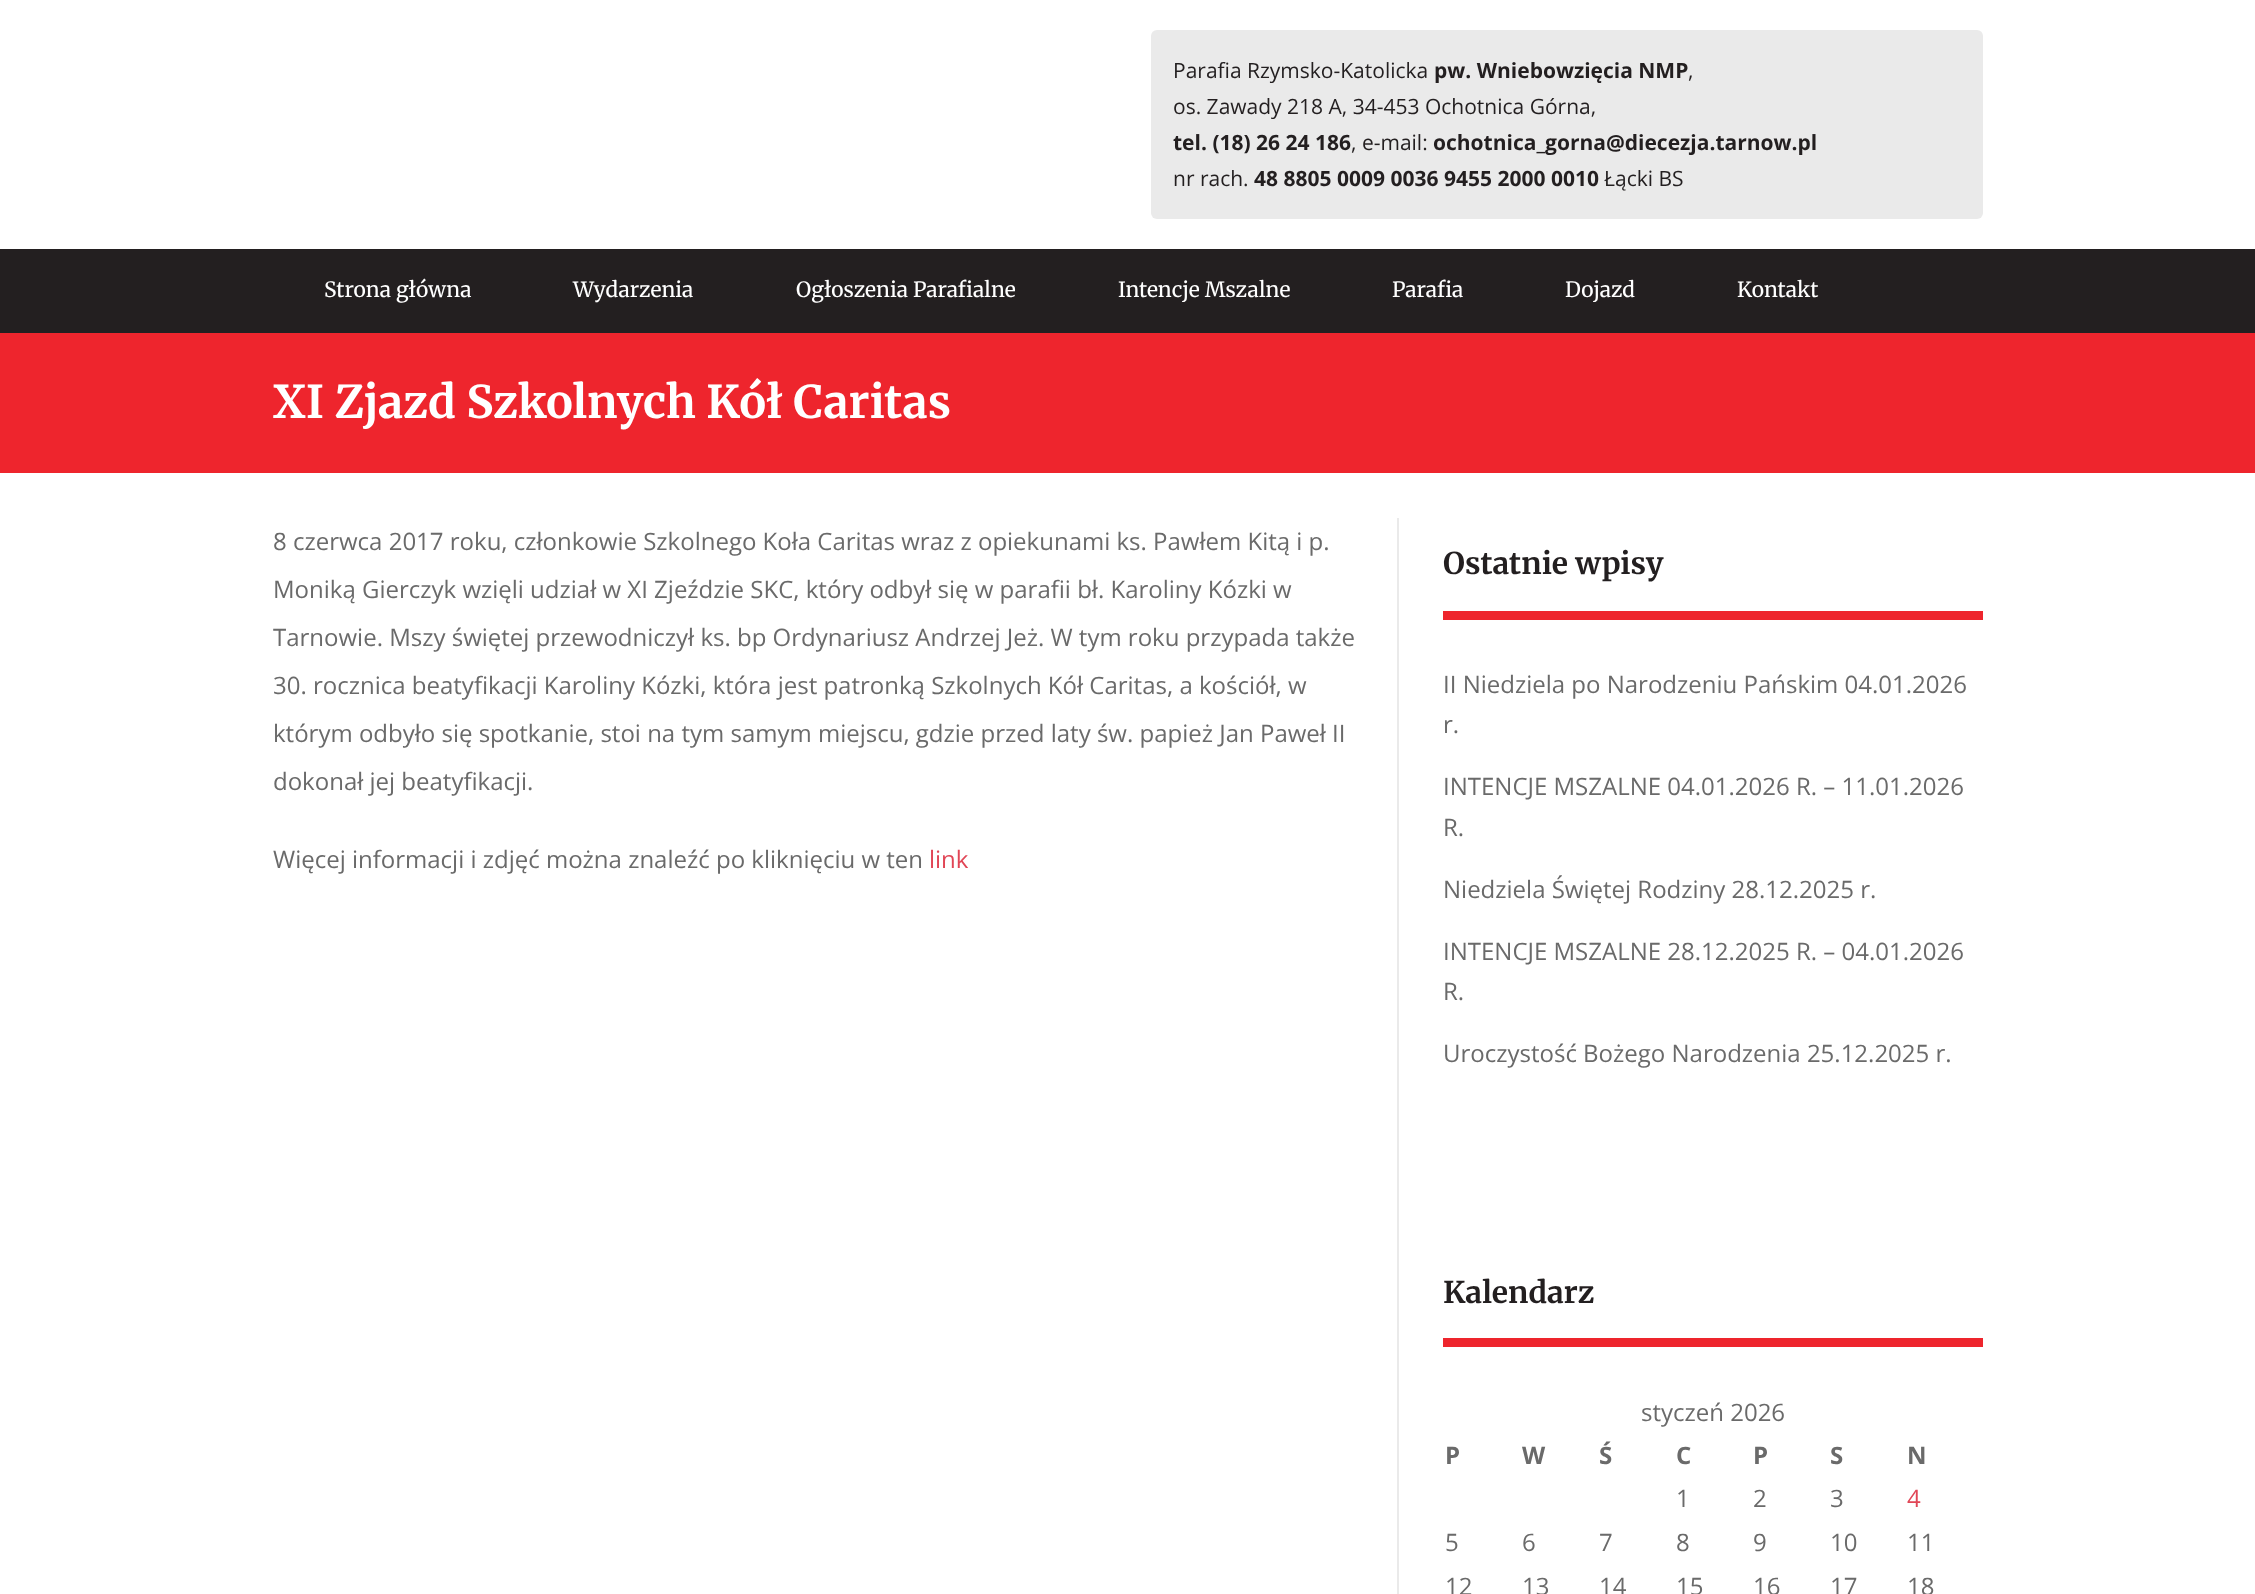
(async () => {
  const canvas = document.querySelector("canvas");
  canvas.width = 2255;
  canvas.height = 1594;
  const ctx = canvas.getContext("2d");
  ctx.miterLimit = 4;
  ctx.fontKerning = "normal";

  ctx.fillStyle = "#ffffff";
  ctx.fillRect(0, 0, 2255, 1594);
  ctx.fillStyle = "#eaeaea";
  ctx.beginPath();
  ctx.roundRect(1151, 30, 832, 189, 6);
  ctx.fill();
  for (const [x, y, w, h, color] of [
    [0, 249, 2255, 84, "#231f20"],
    [0, 333, 2255, 140, "#ee252d"],
    [1397, 518, 2, 1076, "#eaeaea"],
    [1443, 611, 540, 9, "#ee252d"],
    [1443, 1338, 540, 9, "#ee252d"],
  ]) {
    ctx.fillStyle = color;
    ctx.fillRect(x, y, w, h);
  }
  ctx.font = "21px Open Sans";
  ctx.fillStyle = "#231f20";
  ctx.fillText("Parafia Rzymsko-Katolicka", 1173, 78);
  ctx.font = "bold 21px Open Sans";
  ctx.fillText("pw. Wniebowzięcia NMP", 1434, 78);
  ctx.font = "21px Open Sans";
  ctx.fillText(",", 1688, 78);
  ctx.fillText("os. Zawady 218 A, 34-453 Ochotnica Górna,", 1173, 114);
  ctx.font = "bold 21px Open Sans";
  ctx.fillText("tel. (18) 26 24 186", 1173, 150);
  ctx.font = "21px Open Sans";
  ctx.fillText(", e-mail:", 1351, 150);
  ctx.font = "bold 21px Open Sans";
  ctx.fillText("ochotnica_gorna@diecezja.tarnow.pl", 1433, 150);
  ctx.font = "21px Open Sans";
  ctx.fillText("nr rach.", 1173, 186);
  ctx.font = "bold 21px Open Sans";
  ctx.fillText("48 8805 0009 0036 9455 2000 0010", 1254, 186);
  ctx.font = "21px Open Sans";
  ctx.fillText("Łącki BS", 1604, 186);
  ctx.font = "21px Merriweather";
  ctx.fillStyle = "#ffffff";
  for (const [text, x, y] of [
    ["Strona główna", 324, 297],
    ["Wydarzenia", 573, 297],
    ["Ogłoszenia Parafialne", 796, 297],
    ["Intencje Mszalne", 1118, 297],
    ["Parafia", 1392, 297],
    ["Dojazd", 1565, 297],
    ["Kontakt", 1737, 297],
  ]) {
    ctx.fillText(text, x, y);
  }
  ctx.font = "bold 45px Merriweather";
  ctx.fillText("XI Zjazd Szkolnych Kół Caritas", 273, 418);
  ctx.font = "24px Open Sans";
  ctx.fillStyle = "#6a6a6a";
  for (const [text, x, y] of [
    ["8 czerwca 2017 roku, członkowie Szkolnego Koła Caritas wraz z opiekunami ks. Pawłem Kitą i p.", 273, 550],
    ["Moniką Gierczyk wzięli udział w XI Zjeździe SKC, który odbył się w parafii bł. Karoliny Kózki w", 273, 598],
    ["Tarnowie. Mszy świętej przewodniczył ks. bp Ordynariusz Andrzej Jeż. W tym roku przypada także", 273, 646],
    ["30. rocznica beatyfikacji Karoliny Kózki, która jest patronką Szkolnych Kół Caritas, a kościół, w", 273, 694],
    ["którym odbyło się spotkanie, stoi na tym samym miejscu, gdzie przed laty św. papież Jan Paweł II", 273, 742],
    ["dokonał jej beatyfikacji.", 273, 790],
    ["Więcej informacji i zdjęć można znaleźć po kliknięciu w ten", 273, 868],
  ]) {
    ctx.fillText(text, x, y);
  }
  ctx.fillStyle = "#e14656";
  ctx.fillText("link", 929, 868);
  ctx.font = "bold 30px Merriweather";
  ctx.fillStyle = "#231f20";
  ctx.fillText("Ostatnie wpisy", 1443, 574);
  ctx.font = "24px Open Sans";
  ctx.fillStyle = "#6a6a6a";
  for (const [text, x, y] of [
    ["II Niedziela po Narodzeniu Pańskim 04.01.2026", 1443, 693],
    ["r.", 1443, 733],
    ["INTENCJE MSZALNE 04.01.2026 R. – 11.01.2026", 1443, 795],
    ["R.", 1443, 836],
    ["Niedziela Świętej Rodziny 28.12.2025 r.", 1443, 898],
    ["INTENCJE MSZALNE 28.12.2025 R. – 04.01.2026", 1443, 960],
    ["R.", 1443, 1000],
    ["Uroczystość Bożego Narodzenia 25.12.2025 r.", 1443, 1062],
  ]) {
    ctx.fillText(text, x, y);
  }
  ctx.font = "bold 30px Merriweather";
  ctx.fillStyle = "#231f20";
  ctx.fillText("Kalendarz", 1443, 1303);
  ctx.font = "24px Open Sans";
  ctx.fillStyle = "#6a6a6a";
  ctx.fillText("styczeń 2026", 1641, 1421);
  ctx.font = "bold 24px Open Sans";
  for (const [text, x, y] of [
    ["P", 1445, 1464],
    ["W", 1522, 1464],
    ["Ś", 1599, 1464],
    ["C", 1676, 1464],
    ["P", 1753, 1464],
    ["S", 1830, 1464],
    ["N", 1907, 1464],
  ]) {
    ctx.fillText(text, x, y);
  }
  ctx.font = "24px Open Sans";
  for (const [text, x, y] of [
    ["1", 1676, 1507],
    ["2", 1753, 1507],
    ["3", 1830, 1507],
  ]) {
    ctx.fillText(text, x, y);
  }
  ctx.fillStyle = "#e14656";
  ctx.fillText("4", 1907, 1507);
  ctx.fillStyle = "#6a6a6a";
  for (const [text, x, y] of [
    ["5", 1445, 1551],
    ["6", 1522, 1551],
    ["7", 1599, 1551],
    ["8", 1676, 1551],
    ["9", 1753, 1551],
    ["10", 1830, 1551],
    ["11", 1907, 1551],
    ["12", 1445, 1595],
    ["13", 1522, 1595],
    ["14", 1599, 1595],
    ["15", 1676, 1595],
    ["16", 1753, 1595],
    ["17", 1830, 1595],
    ["18", 1907, 1595],
  ]) {
    ctx.fillText(text, x, y);
  }
})();
